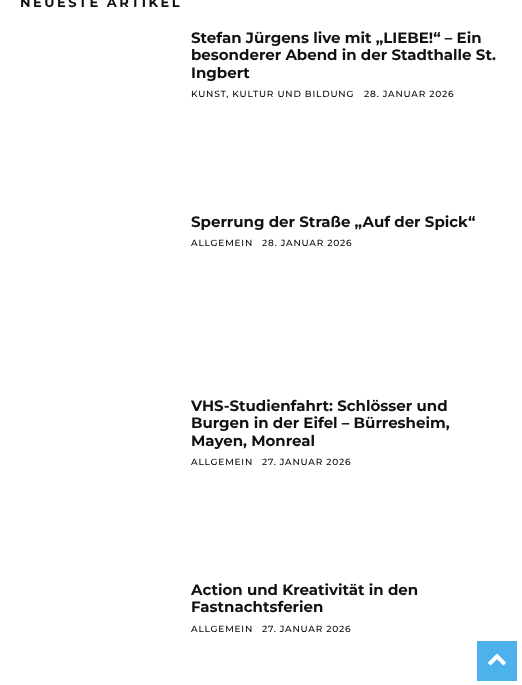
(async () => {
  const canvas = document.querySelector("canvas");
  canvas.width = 522;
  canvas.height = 685;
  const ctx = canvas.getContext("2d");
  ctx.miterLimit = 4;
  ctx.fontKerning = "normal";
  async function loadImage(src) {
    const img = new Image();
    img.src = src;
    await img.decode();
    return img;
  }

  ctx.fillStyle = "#ffffff";
  ctx.fillRect(0, 0, 522, 685);
  ctx.fillStyle = "#4db2ec";
  ctx.fillRect(477, 641, 40, 40);
  ctx.drawImage(await loadImage("img/1.png"), 488, 653, 18, 13);
  ctx.letterSpacing = "2.5px";
  ctx.font = "bold 13px Montserrat";
  ctx.fillStyle = "#111111";
  ctx.fillText("NEUESTE ARTIKEL", 20, 7);
  ctx.letterSpacing = "0px";
  ctx.font = "bold 15px Montserrat";
  for (const [text, x, y] of [
    ["Stefan Jürgens live mit „LIEBE!“ – Ein", 191, 43],
    ["besonderer Abend in der Stadthalle St.", 191, 60],
    ["Ingbert", 191, 78],
  ]) {
    ctx.fillText(text, x, y);
  }
  ctx.letterSpacing = "0.8px";
  ctx.font = "500 9px Montserrat";
  ctx.fillStyle = "#000000";
  ctx.fillText("KUNST, KULTUR UND BILDUNG", 191, 97);
  ctx.fillText("28. JANUAR 2026", 364, 97);
  ctx.letterSpacing = "0px";
  ctx.font = "bold 15px Montserrat";
  ctx.fillStyle = "#111111";
  ctx.fillText("Sperrung der Straße „Auf der Spick“", 191, 227);
  ctx.letterSpacing = "0.8px";
  ctx.font = "500 9px Montserrat";
  ctx.fillStyle = "#000000";
  ctx.fillText("ALLGEMEIN", 191, 246);
  ctx.fillText("28. JANUAR 2026", 262, 246);
  ctx.letterSpacing = "0px";
  ctx.font = "bold 15px Montserrat";
  ctx.fillStyle = "#111111";
  for (const [text, x, y] of [
    ["VHS-Studienfahrt: Schlösser und", 191, 411],
    ["Burgen in der Eifel – Bürresheim,", 191, 428],
    ["Mayen, Monreal", 191, 446],
  ]) {
    ctx.fillText(text, x, y);
  }
  ctx.letterSpacing = "0.8px";
  ctx.font = "500 9px Montserrat";
  ctx.fillStyle = "#000000";
  ctx.fillText("ALLGEMEIN", 191, 465);
  ctx.fillText("27. JANUAR 2026", 262, 465);
  ctx.letterSpacing = "0px";
  ctx.font = "bold 15px Montserrat";
  ctx.fillStyle = "#111111";
  ctx.fillText("Action und Kreativität in den", 191, 595);
  ctx.fillText("Fastnachtsferien", 191, 612);
  ctx.letterSpacing = "0.8px";
  ctx.font = "500 9px Montserrat";
  ctx.fillStyle = "#000000";
  ctx.fillText("ALLGEMEIN", 191, 632);
  ctx.fillText("27. JANUAR 2026", 262, 632);
})();
